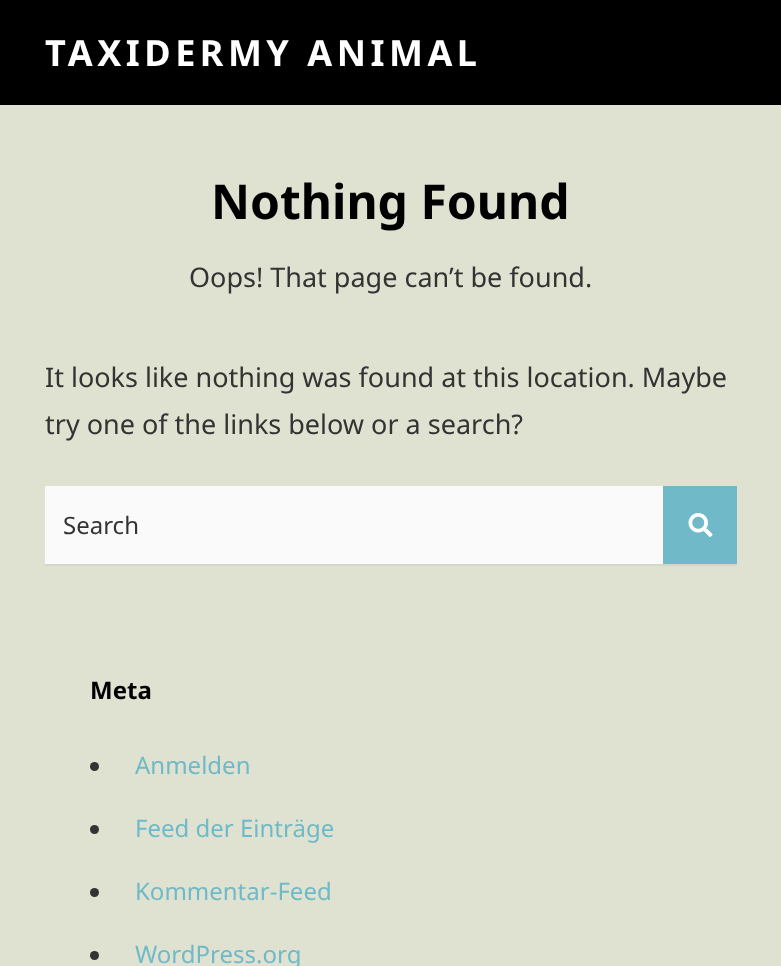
(async () => {
  const canvas = document.querySelector("canvas");
  canvas.width = 781;
  canvas.height = 966;
  const ctx = canvas.getContext("2d");
  ctx.miterLimit = 4;
  ctx.fontKerning = "normal";
  async function loadImage(src) {
    const img = new Image();
    img.src = src;
    await img.decode();
    return img;
  }
  let path;

  ctx.fillStyle = "#dfe2d0";
  ctx.fillRect(0, 0, 781, 966);
  ctx.fillStyle = "#000000";
  ctx.fillRect(0, 0, 781, 105);
  ctx.fillStyle = "#d4d7c6";
  path = new Path2D("M45 564V566H737V488H736V564Z");
  ctx.fill(path);
  ctx.fillStyle = "#fafafa";
  ctx.fillRect(45, 486, 618, 78);
  ctx.fillStyle = "#6fb9c8";
  ctx.fillRect(663, 486, 74, 78);
  ctx.drawImage(await loadImage("img/1.png"), 688, 513, 25, 24);
  ctx.fillStyle = "#333333";
  ctx.beginPath();
  ctx.arc(94.5, 766.5, 4.5, 0, Math.PI * 2);
  ctx.fill();
  ctx.beginPath();
  ctx.arc(94.5, 829.5, 4.5, 0, Math.PI * 2);
  ctx.fill();
  ctx.beginPath();
  ctx.arc(94.5, 892.5, 4.5, 0, Math.PI * 2);
  ctx.fill();
  ctx.beginPath();
  ctx.arc(94.5, 955.5, 4.5, 0, Math.PI * 2);
  ctx.fill();
  ctx.letterSpacing = "4.5px";
  ctx.font = "bold 36px Noto Sans";
  ctx.fillStyle = "#ffffff";
  ctx.fillText("TAXIDERMY ANIMAL", 45, 66);
  ctx.letterSpacing = "0px";
  ctx.font = "bold 48px Noto Sans";
  ctx.fillStyle = "#000000";
  ctx.fillText("Nothing Found", 211, 219);
  ctx.font = "27px Noto Sans";
  ctx.fillStyle = "#333333";
  for (const [text, x, y] of [
    ["Oops! That page can’t be found.", 189, 287],
    ["It looks like nothing was found at this location. Maybe", 45, 387],
    ["try one of the links below or a search?", 45, 434],
  ]) {
    ctx.fillText(text, x, y);
  }
  ctx.font = "24px Noto Sans";
  ctx.fillText("Search", 63, 534);
  ctx.font = "bold 24px Noto Sans";
  ctx.fillStyle = "#000000";
  ctx.fillText("Meta", 90, 699);
  ctx.font = "24px Noto Sans";
  ctx.fillStyle = "#6fb9c8";
  for (const [text, x, y] of [
    ["Anmelden", 135, 774],
    ["Feed der Einträge", 135, 837],
    ["Kommentar-Feed", 135, 900],
    ["WordPress.org", 135, 963],
  ]) {
    ctx.fillText(text, x, y);
  }
})();
